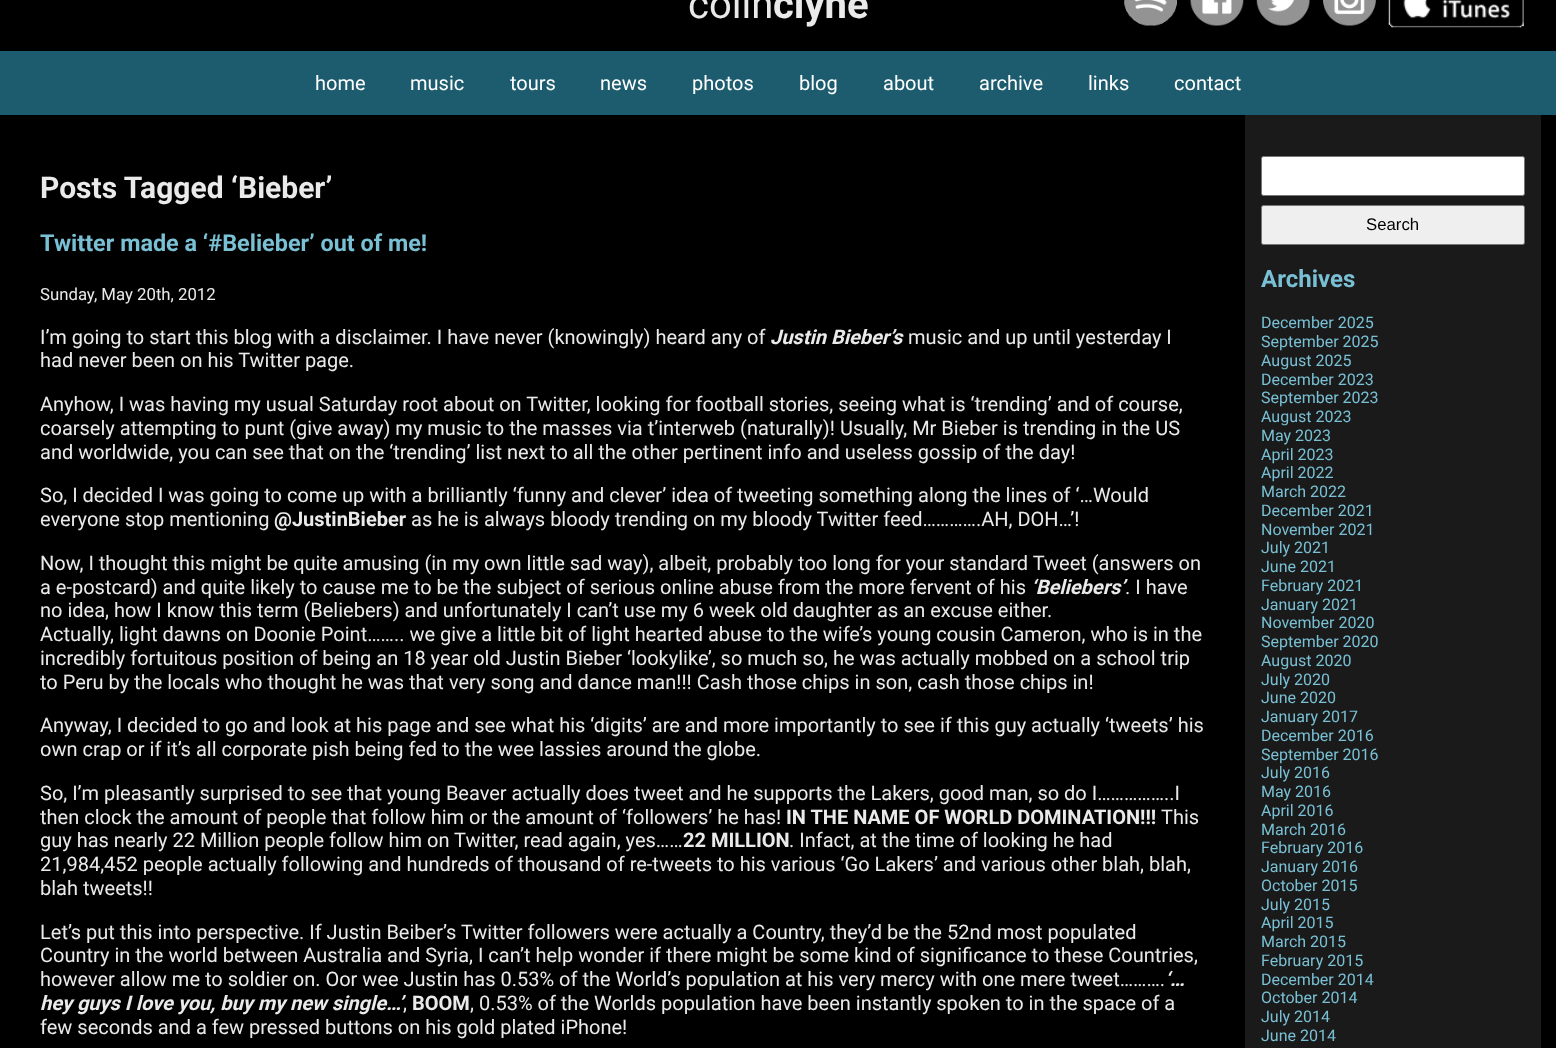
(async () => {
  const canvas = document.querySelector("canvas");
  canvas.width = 1556;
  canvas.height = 1048;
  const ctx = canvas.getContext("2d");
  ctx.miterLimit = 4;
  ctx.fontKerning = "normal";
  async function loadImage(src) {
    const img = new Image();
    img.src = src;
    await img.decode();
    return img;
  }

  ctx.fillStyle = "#000000";
  ctx.fillRect(0, 0, 1556, 1048);
  ctx.drawImage(await loadImage("img/1.png"), 1124, 0, 53, 26);
  ctx.drawImage(await loadImage("img/2.png"), 1190, 0, 54, 26);
  ctx.drawImage(await loadImage("img/3.png"), 1256, 0, 54, 26);
  ctx.drawImage(await loadImage("img/4.png"), 1323, 0, 53, 26);
  ctx.drawImage(await loadImage("img/5.png"), 1388, 0, 136, 28);
  ctx.fillStyle = "#1d5c6e";
  ctx.fillRect(0, 51, 1556, 64);
  ctx.fillStyle = "#1a1a1a";
  ctx.fillRect(1245, 115, 296, 933);
  ctx.fillStyle = "#ffffff";
  ctx.beginPath();
  ctx.roundRect(1261.5, 156.5, 263, 39, 2);
  ctx.fill();
  ctx.strokeStyle = "#767676";
  ctx.stroke();
  ctx.fillStyle = "#efefef";
  ctx.beginPath();
  ctx.roundRect(1261.5, 205.5, 263, 39, 2);
  ctx.fill();
  ctx.stroke();
  ctx.font = "40px Roboto";
  ctx.fillStyle = "#eaeaea";
  ctx.fillText("colin", 688, 18);
  ctx.font = "bold 40px Roboto";
  ctx.fillText("clyne", 773, 18);
  ctx.font = "20px Roboto";
  ctx.fillStyle = "#ffffff";
  for (const [text, x, y] of [
    ["home", 315, 90],
    ["music", 410, 90],
    ["tours", 510, 90],
    ["news", 600, 90],
    ["photos", 692, 90],
    ["blog", 799, 90],
    ["about", 883, 90],
    ["archive", 979, 90],
    ["links", 1088, 90],
    ["contact", 1174, 90],
  ]) {
    ctx.fillText(text, x, y);
  }
  ctx.font = "bold 30px Roboto";
  ctx.fillStyle = "#eaeaea";
  ctx.fillText("Posts Tagged ‘Bieber’", 40, 198);
  ctx.font = "bold 23.4px Roboto";
  ctx.fillStyle = "#79c0d4";
  ctx.fillText("Twitter made a ‘#Belieber’ out of me!", 40, 251);
  ctx.font = "16.75px Roboto";
  ctx.fillStyle = "#eaeaea";
  ctx.fillText("Sunday, May 20th, 2012", 40, 300);
  ctx.font = "20px Roboto";
  ctx.fillText("I’m going to start this blog with a disclaimer. I have never (knowingly) heard any of", 40, 344);
  ctx.font = "italic bold 20px Roboto";
  ctx.fillText("Justin Bieber’s", 770, 344);
  ctx.font = "20px Roboto";
  for (const [text, x, y] of [
    ["music and up until yesterday I", 908, 344],
    ["had never been on his Twitter page.", 40, 367],
    ["Anyhow, I was having my usual Saturday root about on Twitter, looking for football stories, seeing what is ‘trending’ and of course,", 40, 411],
    ["coarsely attempting to punt (give away) my music to the masses via t’interweb (naturally)! Usually, Mr Bieber is trending in the US", 40, 435],
    ["and worldwide, you can see that on the ‘trending’ list next to all the other pertinent info and useless gossip of the day!", 40, 459],
    ["So, I decided I was going to come up with a brilliantly ‘funny and clever’ idea of tweeting something along the lines of ‘…Would", 40, 502],
    ["everyone stop mentioning", 40, 526],
  ]) {
    ctx.fillText(text, x, y);
  }
  ctx.font = "bold 20px Roboto";
  ctx.fillText("@JustinBieber", 274, 526);
  ctx.font = "20px Roboto";
  for (const [text, x, y] of [
    ["as he is always bloody trending on my bloody Twitter feed………….AH, DOH…’!", 411, 526],
    ["Now, I thought this might be quite amusing (in my own little sad way), albeit, probably too long for your standard Tweet (answers on", 40, 570],
    ["a e-postcard) and quite likely to cause me to be the subject of serious online abuse from the more fervent of his", 40, 594],
  ]) {
    ctx.fillText(text, x, y);
  }
  ctx.font = "italic bold 20px Roboto";
  ctx.fillText("‘Beliebers’", 1031, 594);
  ctx.font = "20px Roboto";
  for (const [text, x, y] of [
    [". I have", 1125, 594],
    ["no idea, how I know this term (Beliebers) and unfortunately I can’t use my 6 week old daughter as an excuse either.", 40, 617],
    ["Actually, light dawns on Doonie Point…….. we give a little bit of light hearted abuse to the wife’s young cousin Cameron, who is in the", 40, 641],
    ["incredibly fortuitous position of being an 18 year old Justin Bieber ‘lookylike’, so much so, he was actually mobbed on a school trip", 40, 665],
    ["to Peru by the locals who thought he was that very song and dance man!!! Cash those chips in son, cash those chips in!", 40, 689],
    ["Anyway, I decided to go and look at his page and see what his ‘digits’ are and more importantly to see if this guy actually ‘tweets’ his", 40, 732],
    ["own crap or if it’s all corporate pish being fed to the wee lassies around the globe.", 40, 756],
    ["So, I’m pleasantly surprised to see that young Beaver actually does tweet and he supports the Lakers, good man, so do I……………..I", 40, 800],
    ["then clock the amount of people that follow him or the amount of ‘followers’ he has!", 40, 824],
  ]) {
    ctx.fillText(text, x, y);
  }
  ctx.font = "bold 20px Roboto";
  ctx.fillText("IN THE NAME OF WORLD DOMINATION!!!", 786, 824);
  ctx.font = "20px Roboto";
  ctx.fillText("This", 1161, 824);
  ctx.fillText("guy has nearly 22 Million people follow him on Twitter, read again, yes……", 40, 847);
  ctx.font = "bold 20px Roboto";
  ctx.fillText("22 MILLION", 683, 847);
  ctx.font = "20px Roboto";
  for (const [text, x, y] of [
    [". Infact, at the time of looking he had", 789, 847],
    ["21,984,452 people actually following and hundreds of thousand of re-tweets to his various ‘Go Lakers’ and various other blah, blah,", 40, 871],
    ["blah tweets!!", 40, 895],
    ["Let’s put this into perspective. If Justin Beiber’s Twitter followers were actually a Country, they’d be the 52nd most populated", 40, 939],
    ["Country in the world between Australia and Syria, I can’t help wonder if there might be some kind of significance to these Countries,", 40, 962],
    ["however allow me to soldier on. Oor wee Justin has 0.53% of the World’s population at his very mercy with one mere tweet……….", 40, 986],
  ]) {
    ctx.fillText(text, x, y);
  }
  ctx.font = "italic bold 20px Roboto";
  ctx.fillText("‘…", 1165, 986);
  ctx.fillText("hey guys I love you, buy my new single…’", 40, 1010);
  ctx.font = "bold 20px Roboto";
  ctx.fillText("BOOM", 412, 1010);
  ctx.font = "20px Roboto";
  for (const [text, x, y] of [
    [", 0.53% of the Worlds population have been instantly spoken to in the space of a", 470, 1010],
    [",", 403, 1010],
    ["few seconds and a few pressed buttons on his gold plated iPhone!", 40, 1034],
  ]) {
    ctx.fillText(text, x, y);
  }
  ctx.font = "16.75px Liberation Sans";
  ctx.fillStyle = "#000000";
  ctx.fillText("Search", 1366, 230);
  ctx.font = "bold 24px Roboto";
  ctx.fillStyle = "#79c0d4";
  ctx.fillText("Archives", 1261, 287);
  ctx.font = "16px Roboto";
  for (const [text, x, y] of [
    ["December 2025", 1261, 328],
    ["September 2025", 1261, 347],
    ["August 2025", 1261, 366],
    ["December 2023", 1261, 385],
    ["September 2023", 1261, 403],
    ["August 2023", 1261, 422],
    ["May 2023", 1261, 441],
    ["April 2023", 1261, 460],
    ["April 2022", 1261, 478],
    ["March 2022", 1261, 497],
    ["December 2021", 1261, 516],
    ["November 2021", 1261, 535],
    ["July 2021", 1261, 553],
    ["June 2021", 1261, 572],
    ["February 2021", 1261, 591],
    ["January 2021", 1261, 610],
    ["November 2020", 1261, 628],
    ["September 2020", 1261, 647],
    ["August 2020", 1261, 666],
    ["July 2020", 1261, 685],
    ["June 2020", 1261, 703],
    ["January 2017", 1261, 722],
    ["December 2016", 1261, 741],
    ["September 2016", 1261, 760],
    ["July 2016", 1261, 778],
    ["May 2016", 1261, 797],
    ["April 2016", 1261, 816],
    ["March 2016", 1261, 835],
    ["February 2016", 1261, 853],
    ["January 2016", 1261, 872],
    ["October 2015", 1261, 891],
    ["July 2015", 1261, 910],
    ["April 2015", 1261, 928],
    ["March 2015", 1261, 947],
    ["February 2015", 1261, 966],
    ["December 2014", 1261, 985],
    ["October 2014", 1261, 1003],
    ["July 2014", 1261, 1022],
    ["June 2014", 1261, 1041],
  ]) {
    ctx.fillText(text, x, y);
  }
})();
